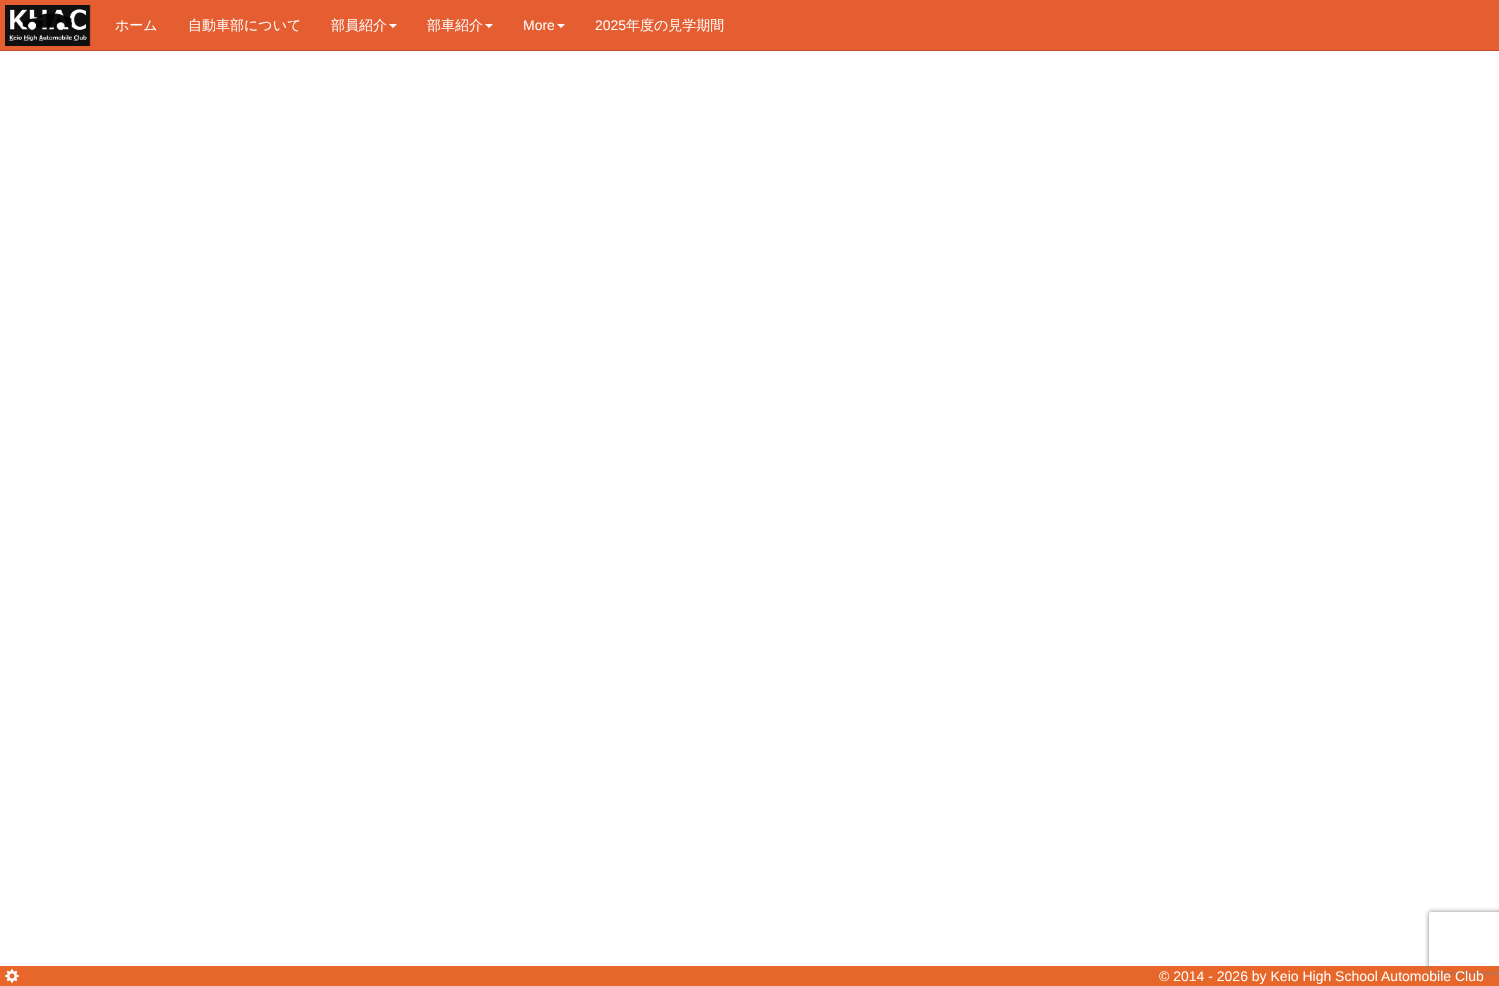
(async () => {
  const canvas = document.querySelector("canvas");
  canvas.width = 1499;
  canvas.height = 986;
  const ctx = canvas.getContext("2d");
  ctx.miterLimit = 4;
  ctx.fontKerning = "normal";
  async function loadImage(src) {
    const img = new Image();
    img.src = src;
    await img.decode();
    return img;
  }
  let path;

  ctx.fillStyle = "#ffffff";
  ctx.fillRect(0, 0, 1499, 986);
  ctx.fillStyle = "#e45e32";
  ctx.fillRect(0, 0, 1499, 50);
  ctx.fillStyle = "#c9502c";
  ctx.fillRect(0, 50, 1499, 1);
  ctx.drawImage(await loadImage("img/1.png"), 5, 5, 86, 41);
  ctx.fillStyle = "#ffffff";
  path = new Path2D("M389 24H397L393 28Z");
  ctx.fill(path);
  path = new Path2D("M485 24H493L489 28Z");
  ctx.fill(path);
  path = new Path2D("M557 24H565L561 28Z");
  ctx.fill(path);
  ctx.fillStyle = "#e7672b";
  ctx.fillRect(0, 966, 1499, 20);
  ctx.drawImage(await loadImage("img/2.png"), 5, 969, 14, 14);
  ctx.save();
  path = new Path2D("M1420 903H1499V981H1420ZM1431 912H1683C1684 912 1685 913 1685 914V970C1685 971 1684 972 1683 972H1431C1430 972 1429 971 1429 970V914C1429 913 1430 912 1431 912Z");
  ctx.clip(path, "evenodd");
  ctx.fillStyle = "#808080";
  ctx.filter = "blur(2.5px)";
  ctx.beginPath();
  ctx.roundRect(1429, 912, 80, 60, 2);
  ctx.fill();
  ctx.filter = "none";
  ctx.restore();
  ctx.font = "500 14px WenQuanYi Zen Hei";
  ctx.fillStyle = "#ffffff";
  for (const [text, x, y] of [
    ["ホーム", 115, 30],
    ["自動車部について", 188, 30],
    ["部員紹介", 331, 30],
    ["部車紹介", 427, 30],
  ]) {
    ctx.fillText(text, x, y);
  }
  ctx.font = "14px Liberation Sans";
  ctx.fillText("More", 523, 30);
  ctx.fillText("2025", 595, 30);
  ctx.font = "500 14px WenQuanYi Zen Hei";
  ctx.fillText("年度の見学期間", 626, 30);
  ctx.font = "14px Liberation Sans";
  ctx.fillText("© 2014 - 2026 by Keio High School Automobile Club", 1159, 981);
})();
